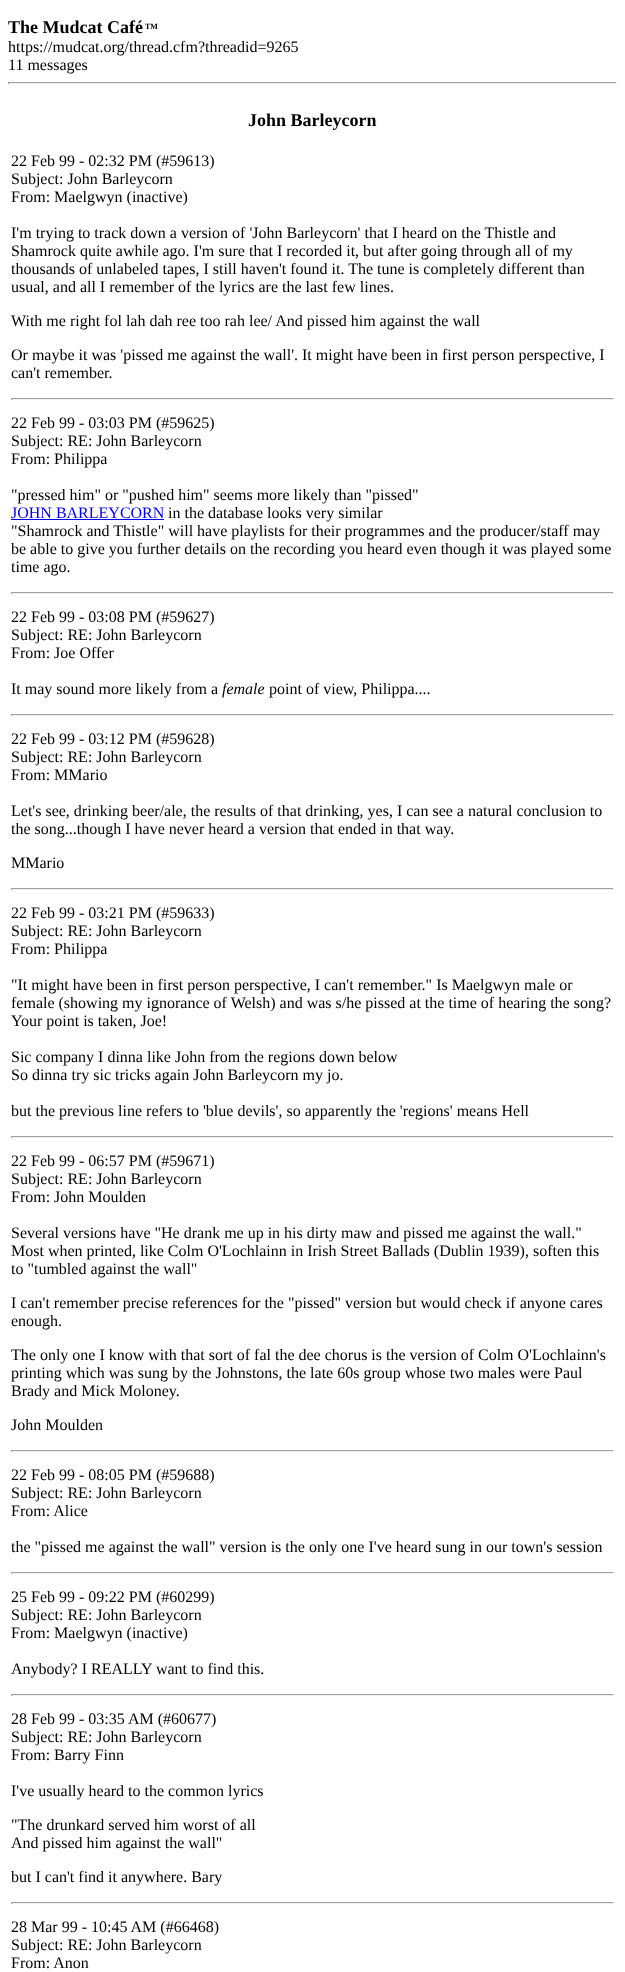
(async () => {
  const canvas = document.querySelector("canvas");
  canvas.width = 625;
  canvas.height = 1972;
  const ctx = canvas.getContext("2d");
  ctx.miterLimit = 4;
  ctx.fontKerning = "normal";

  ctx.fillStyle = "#ffffff";
  ctx.fillRect(0, 0, 625, 1972);
  for (const [x, y, w, h, color] of [
    [8, 82, 609, 1, "#9f9f9f"],
    [616, 82, 1, 2, "#eeeeee"],
    [8, 83, 609, 1, "#eeeeee"],
    [8, 82, 1, 2, "#9f9f9f"],
    [11, 398, 603, 1, "#9f9f9f"],
    [613, 398, 1, 2, "#eeeeee"],
    [11, 399, 603, 1, "#eeeeee"],
    [11, 398, 1, 2, "#9f9f9f"],
    [11, 519, 153, 1, "#0000ee"],
    [11, 592, 603, 1, "#9f9f9f"],
    [613, 592, 1, 2, "#eeeeee"],
    [11, 593, 603, 1, "#eeeeee"],
    [11, 592, 1, 2, "#9f9f9f"],
    [11, 714, 603, 1, "#9f9f9f"],
    [613, 714, 1, 2, "#eeeeee"],
    [11, 715, 603, 1, "#eeeeee"],
    [11, 714, 1, 2, "#9f9f9f"],
    [11, 888, 603, 1, "#9f9f9f"],
    [613, 888, 1, 2, "#eeeeee"],
    [11, 889, 603, 1, "#eeeeee"],
    [11, 888, 1, 2, "#9f9f9f"],
    [11, 1136, 603, 1, "#9f9f9f"],
    [613, 1136, 1, 2, "#eeeeee"],
    [11, 1137, 603, 1, "#eeeeee"],
    [11, 1136, 1, 2, "#9f9f9f"],
    [11, 1450, 603, 1, "#9f9f9f"],
    [613, 1450, 1, 2, "#eeeeee"],
    [11, 1451, 603, 1, "#eeeeee"],
    [11, 1450, 1, 2, "#9f9f9f"],
    [11, 1572, 603, 1, "#9f9f9f"],
    [613, 1572, 1, 2, "#eeeeee"],
    [11, 1573, 603, 1, "#eeeeee"],
    [11, 1572, 1, 2, "#9f9f9f"],
    [11, 1694, 603, 1, "#9f9f9f"],
    [613, 1694, 1, 2, "#eeeeee"],
    [11, 1695, 603, 1, "#eeeeee"],
    [11, 1694, 1, 2, "#9f9f9f"],
    [11, 1902, 603, 1, "#9f9f9f"],
    [613, 1902, 1, 2, "#eeeeee"],
    [11, 1903, 603, 1, "#eeeeee"],
    [11, 1902, 1, 2, "#9f9f9f"],
  ]) {
    ctx.fillStyle = color;
    ctx.fillRect(x, y, w, h);
  }
  ctx.font = "bold 18px Liberation Serif";
  ctx.fillStyle = "#000000";
  ctx.fillText("The Mudcat Café", 8, 33);
  ctx.font = "bold 8px Liberation Serif";
  ctx.fillText("TM", 145, 29);
  ctx.font = "16px Liberation Serif";
  ctx.fillText("https://mudcat.org/thread.cfm?threadid=9265", 8, 52);
  ctx.fillText("11 messages", 8, 70);
  ctx.font = "bold 18px Liberation Serif";
  ctx.fillText("John Barleycorn", 248, 126);
  ctx.font = "16px Liberation Serif";
  for (const [text, x, y] of [
    ["22 Feb 99 - 02:32 PM (#59613)", 11, 166],
    ["Subject: John Barleycorn", 11, 184],
    ["From: Maelgwyn (inactive)", 11, 202],
    ["I'm trying to track down a version of 'John Barleycorn' that I heard on the Thistle and", 11, 238],
    ["Shamrock quite awhile ago. I'm sure that I recorded it, but after going through all of my", 11, 256],
    ["thousands of unlabeled tapes, I still haven't found it. The tune is completely different than", 11, 274],
    ["usual, and all I remember of the lyrics are the last few lines.", 11, 292],
    ["With me right fol lah dah ree too rah lee/ And pissed him against the wall", 11, 326],
    ["Or maybe it was 'pissed me against the wall'. It might have been in first person perspective, I", 11, 360],
    ["can't remember.", 11, 378],
    ["22 Feb 99 - 03:03 PM (#59625)", 11, 428],
    ["Subject: RE: John Barleycorn", 11, 446],
    ["From: Philippa", 11, 464],
    ["\"pressed him\" or \"pushed him\" seems more likely than \"pissed\"", 11, 500],
  ]) {
    ctx.fillText(text, x, y);
  }
  ctx.fillStyle = "#0000ee";
  ctx.fillText("JOHN BARLEYCORN", 11, 518);
  ctx.fillStyle = "#000000";
  for (const [text, x, y] of [
    ["in the database looks very similar", 168, 518],
    ["\"Shamrock and Thistle\" will have playlists for their programmes and the producer/staff may", 11, 536],
    ["be able to give you further details on the recording you heard even though it was played some", 11, 554],
    ["time ago.", 11, 572],
    ["22 Feb 99 - 03:08 PM (#59627)", 11, 622],
    ["Subject: RE: John Barleycorn", 11, 640],
    ["From: Joe Offer", 11, 658],
    ["It may sound more likely from a", 11, 694],
  ]) {
    ctx.fillText(text, x, y);
  }
  ctx.font = "italic 16px Liberation Serif";
  ctx.fillText("female", 222, 694);
  ctx.font = "16px Liberation Serif";
  for (const [text, x, y] of [
    ["point of view, Philippa....", 269, 694],
    ["22 Feb 99 - 03:12 PM (#59628)", 11, 744],
    ["Subject: RE: John Barleycorn", 11, 762],
    ["From: MMario", 11, 780],
    ["Let's see, drinking beer/ale, the results of that drinking, yes, I can see a natural conclusion to", 11, 816],
    ["the song...though I have never heard a version that ended in that way.", 11, 834],
    ["MMario", 11, 868],
    ["22 Feb 99 - 03:21 PM (#59633)", 11, 918],
    ["Subject: RE: John Barleycorn", 11, 936],
    ["From: Philippa", 11, 954],
    ["\"It might have been in first person perspective, I can't remember.\" Is Maelgwyn male or", 11, 990],
    ["female (showing my ignorance of Welsh) and was s/he pissed at the time of hearing the song?", 11, 1008],
    ["Your point is taken, Joe!", 11, 1026],
    ["Sic company I dinna like John from the regions down below", 11, 1062],
    ["So dinna try sic tricks again John Barleycorn my jo.", 11, 1080],
    ["but the previous line refers to 'blue devils', so apparently the 'regions' means Hell", 11, 1116],
    ["22 Feb 99 - 06:57 PM (#59671)", 11, 1166],
    ["Subject: RE: John Barleycorn", 11, 1184],
    ["From: John Moulden", 11, 1202],
    ["Several versions have \"He drank me up in his dirty maw and pissed me against the wall.\"", 11, 1238],
    ["Most when printed, like Colm O'Lochlainn in Irish Street Ballads (Dublin 1939), soften this", 11, 1256],
    ["to \"tumbled against the wall\"", 11, 1274],
    ["I can't remember precise references for the \"pissed\" version but would check if anyone cares", 11, 1308],
    ["enough.", 11, 1326],
    ["The only one I know with that sort of fal the dee chorus is the version of Colm O'Lochlainn's", 11, 1360],
    ["printing which was sung by the Johnstons, the late 60s group whose two males were Paul", 11, 1378],
    ["Brady and Mick Moloney.", 11, 1396],
    ["John Moulden", 11, 1430],
    ["22 Feb 99 - 08:05 PM (#59688)", 11, 1480],
    ["Subject: RE: John Barleycorn", 11, 1498],
    ["From: Alice", 11, 1516],
    ["the \"pissed me against the wall\" version is the only one I've heard sung in our town's session", 11, 1552],
    ["25 Feb 99 - 09:22 PM (#60299)", 11, 1602],
    ["Subject: RE: John Barleycorn", 11, 1620],
    ["From: Maelgwyn (inactive)", 11, 1638],
    ["Anybody? I REALLY want to find this.", 11, 1674],
    ["28 Feb 99 - 03:35 AM (#60677)", 11, 1724],
    ["Subject: RE: John Barleycorn", 11, 1742],
    ["From: Barry Finn", 11, 1760],
    ["I've usually heard to the common lyrics", 11, 1796],
    ["\"The drunkard served him worst of all", 11, 1830],
    ["And pissed him against the wall\"", 11, 1848],
    ["but I can't find it anywhere. Bary", 11, 1882],
    ["28 Mar 99 - 10:45 AM (#66468)", 11, 1932],
    ["Subject: RE: John Barleycorn", 11, 1950],
    ["From: Anon", 11, 1968],
  ]) {
    ctx.fillText(text, x, y);
  }
})();
